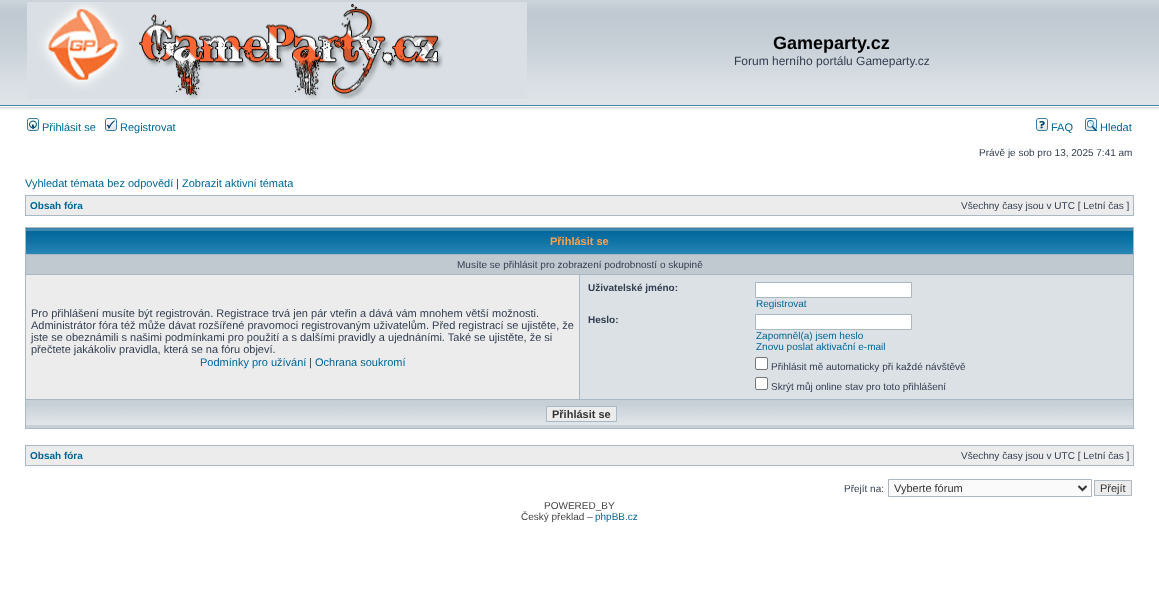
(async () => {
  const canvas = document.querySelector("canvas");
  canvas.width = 1159;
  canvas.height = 615;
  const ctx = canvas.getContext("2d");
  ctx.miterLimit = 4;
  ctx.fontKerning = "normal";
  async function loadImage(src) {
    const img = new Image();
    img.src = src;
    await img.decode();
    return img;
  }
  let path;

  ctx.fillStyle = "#ffffff";
  ctx.fillRect(0, 0, 1159, 615);
  ctx.drawImage(await loadImage("img/1.png"), 0, 0, 1159, 116);
  ctx.drawImage(await loadImage("img/2.png"), 27, 2, 500, 97);
  ctx.drawImage(await loadImage("img/3.png"), 27, 118, 12, 13);
  ctx.drawImage(await loadImage("img/4.png"), 105, 118, 12, 13);
  ctx.drawImage(await loadImage("img/5.png"), 1036, 118, 12, 13);
  ctx.drawImage(await loadImage("img/6.png"), 1085, 118, 12, 13);
  for (const [x, y, w, h, color] of [
    [25, 195, 1109, 21, "#a9b8c2"],
    [26, 196, 1107, 19, "#ececec"],
    [25, 227, 1109, 202, "#a9b8c2"],
  ]) {
    ctx.fillStyle = color;
    ctx.fillRect(x, y, w, h);
  }
  ctx.drawImage(await loadImage("img/7.png"), 26, 228, 1107, 26);
  for (const [x, y, w, h, color] of [
    [26, 255, 1107, 19, "#c0c8d0"],
    [26, 275, 553, 124, "#ececec"],
    [580, 275, 553, 124, "#dce1e5"],
  ]) {
    ctx.fillStyle = color;
    ctx.fillRect(x, y, w, h);
  }
  ctx.fillStyle = "#ffffff";
  ctx.beginPath();
  ctx.rect(755.5, 282.5, 156, 15);
  ctx.fill();
  ctx.strokeStyle = "#a9b8c2";
  ctx.stroke();
  ctx.beginPath();
  ctx.rect(755.5, 314.5, 156, 15);
  ctx.fill();
  ctx.stroke();
  ctx.beginPath();
  ctx.roundRect(755.5, 357.5, 12, 12, 1.5);
  ctx.fill();
  ctx.strokeStyle = "#767676";
  ctx.stroke();
  ctx.beginPath();
  ctx.roundRect(755.5, 377.5, 12, 12, 1.5);
  ctx.fill();
  ctx.stroke();
  ctx.fillStyle = "#c7d0d7";
  ctx.fillRect(26, 400, 1107, 28);
  ctx.drawImage(await loadImage("img/8.png"), 26, 406, 1107, 19);
  ctx.fillStyle = "#ececec";
  ctx.beginPath();
  ctx.rect(546.5, 406.5, 70, 15);
  ctx.fill();
  ctx.strokeStyle = "#a9b8c2";
  ctx.stroke();
  ctx.fillStyle = "#a9b8c2";
  ctx.fillRect(25, 445, 1109, 21);
  ctx.fillStyle = "#ececec";
  ctx.fillRect(26, 446, 1107, 19);
  ctx.fillStyle = "#fafafa";
  ctx.beginPath();
  ctx.rect(888.5, 479.5, 203, 17);
  ctx.fill();
  ctx.stroke();
  path = new Path2D("M1078.5 486L1082.5 490L1086.5 486");
  ctx.strokeStyle = "#333333";
  ctx.lineWidth = 2;
  ctx.stroke(path);
  ctx.fillStyle = "#ececec";
  ctx.beginPath();
  ctx.rect(1094.5, 480.5, 37, 15);
  ctx.fill();
  ctx.strokeStyle = "#a9b8c2";
  ctx.lineWidth = 1;
  ctx.stroke();
  ctx.font = "bold 18px Liberation Sans";
  ctx.fillStyle = "#000000";
  ctx.fillText("Gameparty.cz", 773, 49);
  ctx.font = "12px Liberation Sans";
  ctx.fillStyle = "#323d4f";
  ctx.fillText("Forum herního portálu Gameparty.cz", 734, 65);
  ctx.font = "11px Liberation Sans";
  ctx.fillStyle = "#006597";
  for (const [text, x, y] of [
    ["Přihlásit se", 42, 131],
    ["Registrovat", 120, 131],
    ["FAQ", 1051, 131],
    ["Hledat", 1100, 131],
  ]) {
    ctx.fillText(text, x, y);
  }
  ctx.font = "10px Liberation Sans";
  ctx.fillStyle = "#323d4f";
  ctx.fillText("Právě je sob pro 13, 2025 7:41 am", 979, 156);
  ctx.font = "11px Liberation Sans";
  ctx.fillStyle = "#006597";
  ctx.fillText("Vyhledat témata bez odpovědí", 25, 187);
  ctx.fillStyle = "#323d4f";
  ctx.fillText("|", 176, 187);
  ctx.fillStyle = "#006597";
  ctx.fillText("Zobrazit aktivní témata", 182, 187);
  ctx.font = "bold 10px Liberation Sans";
  ctx.fillText("Obsah fóra", 30, 209);
  ctx.font = "10px Liberation Sans";
  ctx.fillStyle = "#323d4f";
  ctx.fillText("Všechny časy jsou v UTC [ Letní čas ]", 961, 209);
  ctx.font = "bold 11px Liberation Sans";
  ctx.fillStyle = "#ffa34f";
  ctx.fillText("Přihlásit se", 550, 245);
  ctx.font = "10px Liberation Sans";
  ctx.fillStyle = "#323d4f";
  ctx.fillText("Musíte se přihlásit pro zobrazení podrobností o skupině", 457, 268);
  ctx.font = "11px Liberation Sans";
  for (const [text, x, y] of [
    ["Pro přihlášení musíte být registrován. Registrace trvá jen pár vteřin a dává vám mnohem větší možnosti.", 31, 317],
    ["Administrátor fóra též může dávat rozšířené pravomoci registrovaným uživatelům. Před registrací se ujistěte, že", 31, 329],
    ["jste se obeznámili s našimi podmínkami pro použití a s dalšími pravidly a ujednáními. Také se ujistěte, že si", 31, 341],
    ["přečtete jakákoliv pravidla, která se na fóru objeví.", 31, 353],
  ]) {
    ctx.fillText(text, x, y);
  }
  ctx.fillStyle = "#006597";
  ctx.fillText("Podmínky pro užívání", 200, 366);
  ctx.fillStyle = "#323d4f";
  ctx.fillText("|", 309, 366);
  ctx.fillStyle = "#006597";
  ctx.fillText("Ochrana soukromí", 315, 366);
  ctx.font = "bold 10px Liberation Sans";
  ctx.fillStyle = "#323d4f";
  ctx.fillText("Uživatelské jméno:", 588, 291);
  ctx.font = "10px Liberation Sans";
  ctx.fillStyle = "#006597";
  ctx.fillText("Registrovat", 756, 307);
  ctx.font = "bold 10px Liberation Sans";
  ctx.fillStyle = "#323d4f";
  ctx.fillText("Heslo:", 588, 323);
  ctx.font = "10px Liberation Sans";
  ctx.fillStyle = "#006597";
  ctx.fillText("Zapomněl(a) jsem heslo", 756, 339);
  ctx.fillText("Znovu poslat aktivační e-mail", 756, 350);
  ctx.fillStyle = "#323d4f";
  ctx.fillText("Přihlásit mě automaticky při každé návštěvě", 771, 370);
  ctx.fillText("Skrýt můj online stav pro toto přihlášení", 771, 390);
  ctx.font = "bold 11px Liberation Sans";
  ctx.fillStyle = "#333333";
  ctx.fillText("Přihlásit se", 552, 418);
  ctx.font = "bold 10px Liberation Sans";
  ctx.fillStyle = "#006597";
  ctx.fillText("Obsah fóra", 30, 459);
  ctx.font = "10px Liberation Sans";
  ctx.fillStyle = "#323d4f";
  ctx.fillText("Všechny časy jsou v UTC [ Letní čas ]", 961, 459);
  ctx.fillText("Přejít na:", 844, 492);
  ctx.font = "11px Liberation Sans";
  ctx.fillStyle = "#333333";
  ctx.fillText("Vyberte fórum", 894, 492);
  ctx.fillText("Přejít", 1100, 492);
  ctx.font = "10px Liberation Sans";
  ctx.fillStyle = "#444444";
  ctx.fillText("POWERED_BY", 544, 509);
  ctx.fillText("Český překlad –", 521, 520);
  ctx.fillStyle = "#006597";
  ctx.fillText("phpBB.cz", 595, 520);
})();
